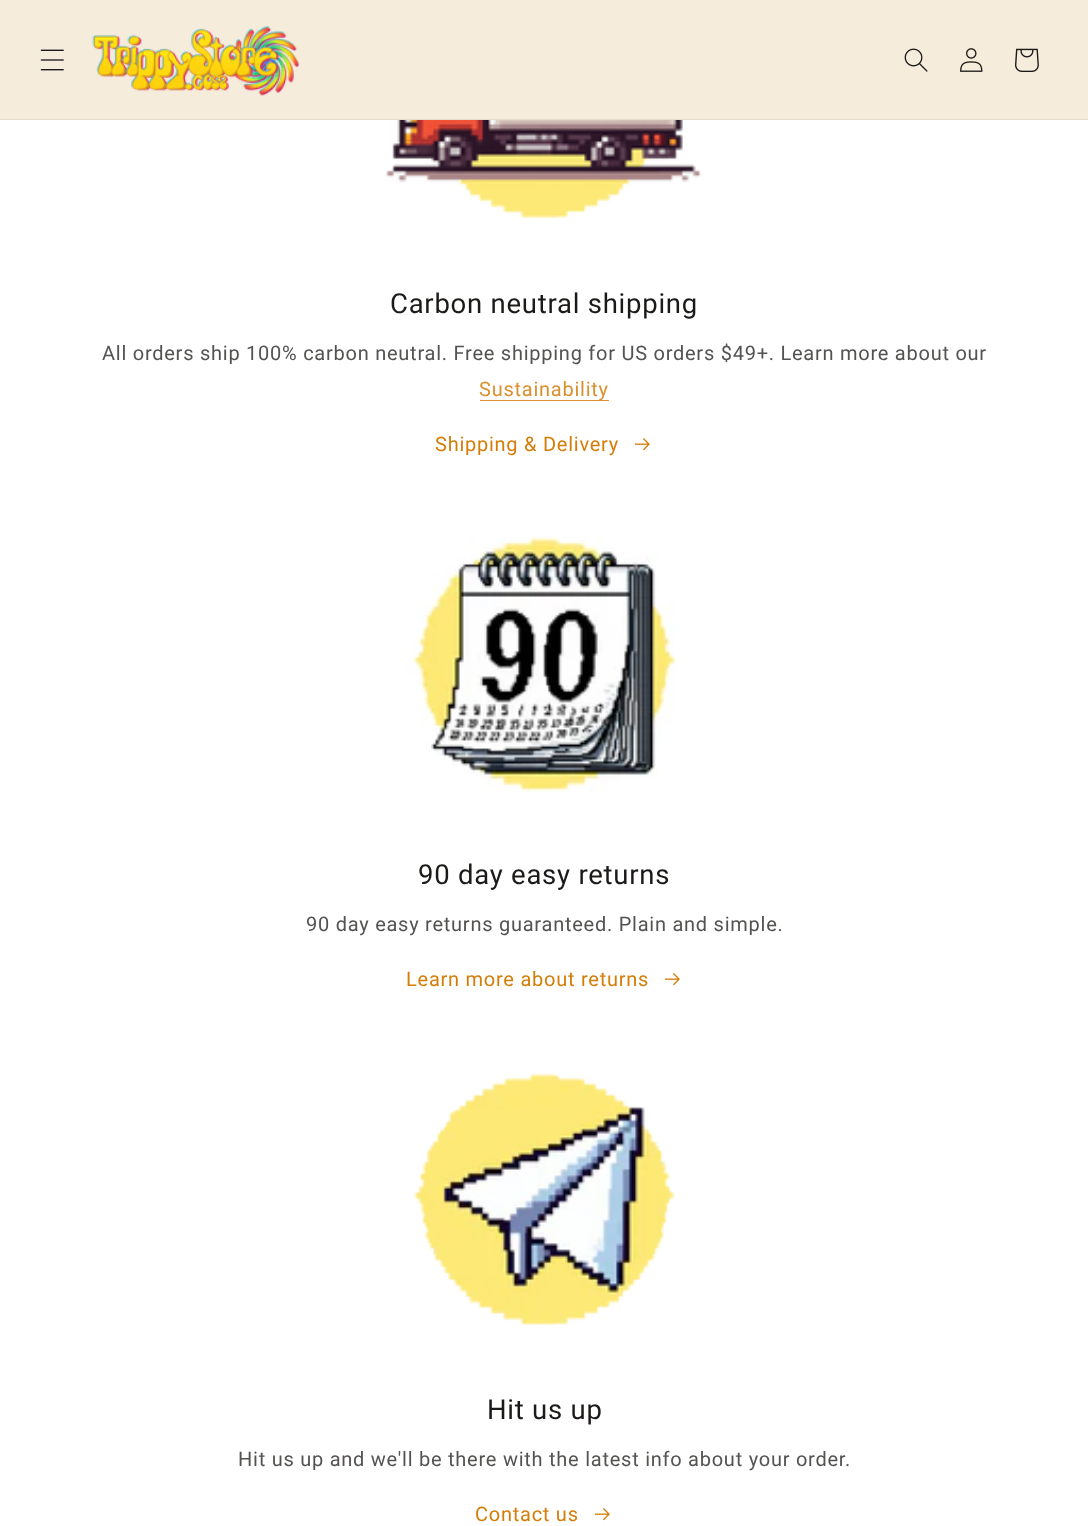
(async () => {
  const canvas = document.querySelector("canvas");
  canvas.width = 1088;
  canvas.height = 1526;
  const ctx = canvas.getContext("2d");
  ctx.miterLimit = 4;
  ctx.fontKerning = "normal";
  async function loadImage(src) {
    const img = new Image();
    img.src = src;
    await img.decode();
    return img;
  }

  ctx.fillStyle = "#ffffff";
  ctx.fillRect(0, 0, 1088, 1526);
  ctx.fillStyle = "#f6ecdc";
  ctx.fillRect(0, 0, 1088, 119);
  ctx.fillStyle = "#e4dbcc";
  ctx.fillRect(0, 119, 1088, 1);
  ctx.drawImage(await loadImage("img/1.png"), 40, 49, 24, 22);
  ctx.drawImage(await loadImage("img/2.png"), 92, 25, 207, 71);
  ctx.drawImage(await loadImage("img/3.png"), 904, 48, 24, 24);
  ctx.drawImage(await loadImage("img/4.png"), 960, 48, 23, 24);
  ctx.drawImage(await loadImage("img/5.png"), 1015, 48, 24, 24);
  ctx.drawImage(await loadImage("img/6.png"), 386, 120, 316, 99);
  ctx.fillStyle = "#da912e";
  ctx.fillRect(480, 400, 129, 1);
  ctx.drawImage(await loadImage("img/7.png"), 635, 438, 15, 13);
  ctx.drawImage(await loadImage("img/8.png"), 403, 536, 274, 256);
  ctx.drawImage(await loadImage("img/7.png"), 665, 973, 15, 13);
  ctx.drawImage(await loadImage("img/9.png"), 414, 1073, 261, 253);
  ctx.drawImage(await loadImage("img/7.png"), 595, 1508, 15, 13);
  ctx.letterSpacing = "0.75px";
  ctx.font = "27.5px Roboto";
  ctx.fillStyle = "#1b1a18";
  ctx.fillText("Carbon neutral shipping", 390, 313);
  ctx.font = "20px Roboto";
  ctx.fillStyle = "#545352";
  ctx.fillText("All orders ship 100% carbon neutral. Free shipping for US orders $49+. Learn more about our", 102, 360);
  ctx.fillStyle = "#da902e";
  ctx.fillText("Sustainability", 479, 396);
  ctx.fillStyle = "#d47d09";
  ctx.fillText("Shipping & Delivery", 435, 451);
  ctx.font = "27.5px Roboto";
  ctx.fillStyle = "#1b1a18";
  ctx.fillText("90 day easy returns", 418, 884);
  ctx.font = "20px Roboto";
  ctx.fillStyle = "#545352";
  ctx.fillText("90 day easy returns guaranteed. Plain and simple.", 306, 931);
  ctx.fillStyle = "#d47d09";
  ctx.fillText("Learn more about returns", 406, 986);
  ctx.font = "27.5px Roboto";
  ctx.fillStyle = "#1b1a18";
  ctx.fillText("Hit us up", 487, 1419);
  ctx.font = "20px Roboto";
  ctx.fillStyle = "#545352";
  ctx.fillText("Hit us up and we'll be there with the latest info about your order.", 238, 1466);
  ctx.fillStyle = "#d47d09";
  ctx.fillText("Contact us", 475, 1521);
})();
